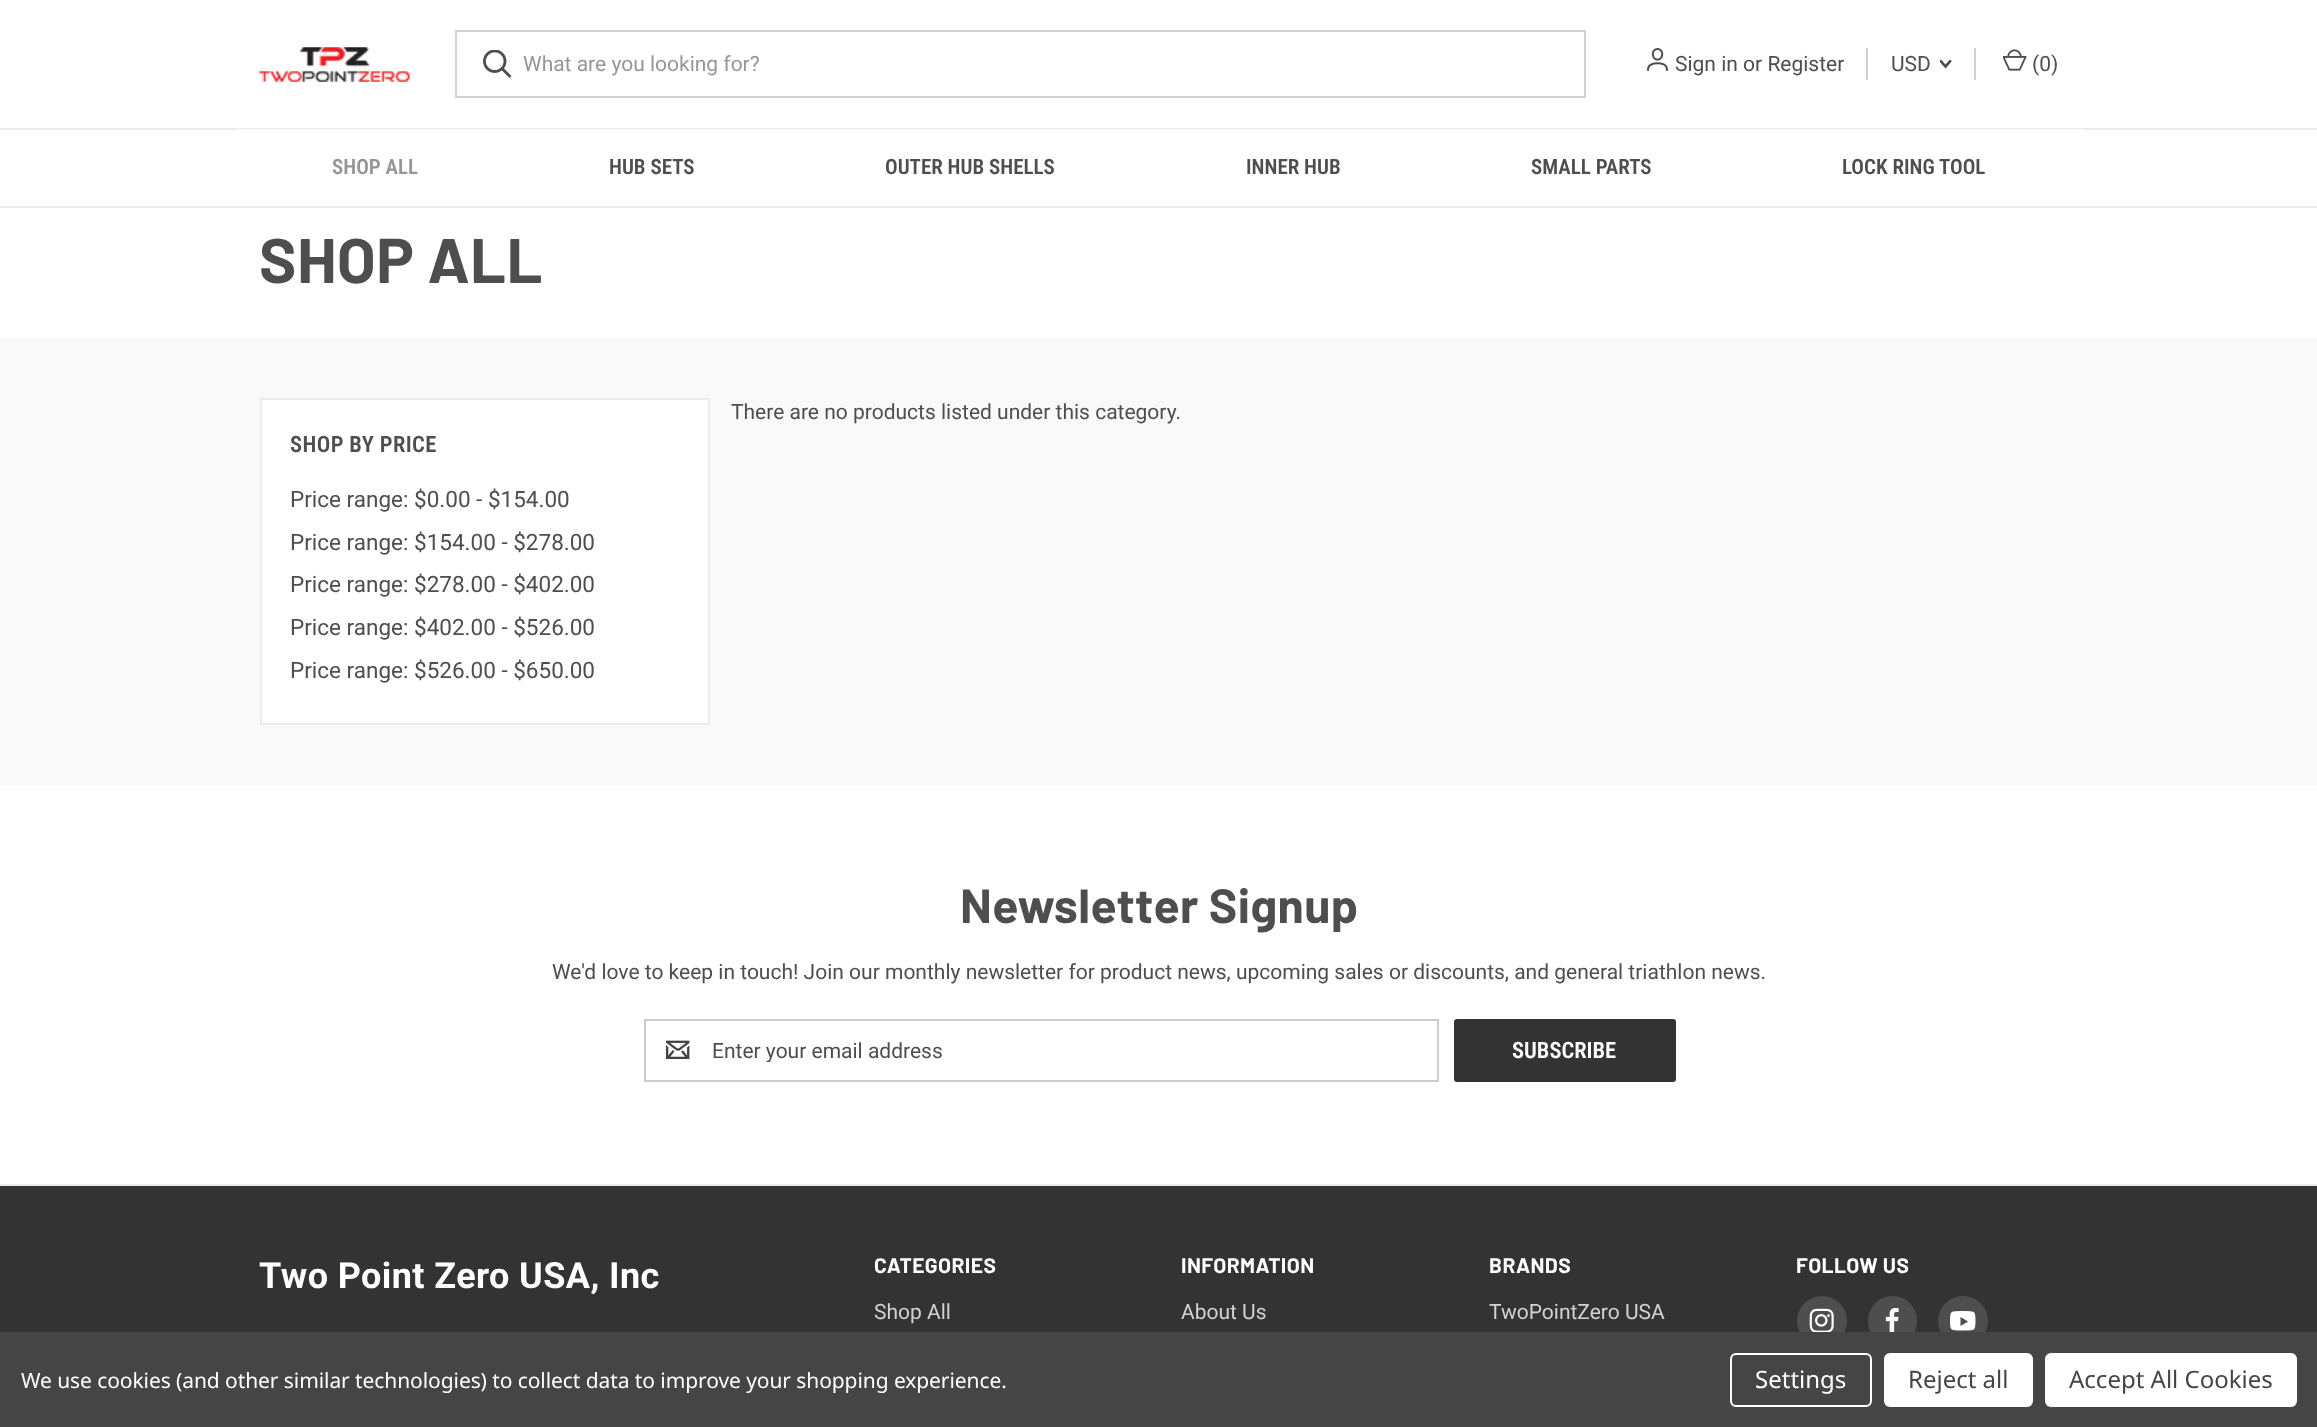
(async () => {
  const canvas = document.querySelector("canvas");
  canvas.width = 2317;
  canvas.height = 1427;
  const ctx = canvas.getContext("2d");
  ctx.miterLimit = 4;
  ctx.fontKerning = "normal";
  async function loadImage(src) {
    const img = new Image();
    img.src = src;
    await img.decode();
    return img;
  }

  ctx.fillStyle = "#ffffff";
  ctx.fillRect(0, 0, 2317, 1427);
  ctx.drawImage(await loadImage("img/1.png"), 259, 47, 151, 35);
  ctx.strokeStyle = "#d2d2d2";
  ctx.lineWidth = 2;
  ctx.strokeRect(456, 31, 1129, 66);
  ctx.drawImage(await loadImage("img/2.png"), 483, 50, 29, 28);
  ctx.drawImage(await loadImage("img/3.png"), 1646, 48, 23, 23);
  ctx.fillStyle = "#d2d2d2";
  ctx.fillRect(1866, 48, 2, 32);
  ctx.drawImage(await loadImage("img/4.png"), 1940, 59, 12, 10);
  ctx.fillRect(1974, 48, 2, 32);
  ctx.drawImage(await loadImage("img/5.png"), 2003, 49, 24, 22);
  for (const [x, y, w, h, color] of [
    [0, 128, 2317, 2, "#ebebeb"],
    [0, 206, 2317, 2, "#ebebeb"],
    [237, 129, 1845, 1, "#ffffff"],
    [0, 338, 2317, 447, "#f9f9f9"],
  ]) {
    ctx.fillStyle = color;
    ctx.fillRect(x, y, w, h);
  }
  ctx.fillStyle = "#ffffff";
  ctx.beginPath();
  ctx.rect(261, 399, 448, 325);
  ctx.fill();
  ctx.strokeStyle = "#ebebeb";
  ctx.stroke();
  ctx.strokeStyle = "#cccccc";
  ctx.strokeRect(645, 1020, 793, 61);
  ctx.drawImage(await loadImage("img/6.png"), 666, 1040, 24, 19);
  ctx.fillStyle = "#333333";
  ctx.beginPath();
  ctx.roundRect(1454, 1019, 222, 63, 3);
  ctx.fill();
  ctx.fillRect(0, 1186, 2317, 146);
  ctx.fillStyle = "#ebebeb";
  ctx.fillRect(0, 1184, 2317, 2);
  ctx.fillStyle = "#4e4e4e";
  ctx.beginPath();
  ctx.arc(1822, 1321, 25, 0, Math.PI * 2);
  ctx.fill();
  ctx.drawImage(await loadImage("img/7.png"), 1809, 1308, 25, 24);
  ctx.beginPath();
  ctx.roundRect(1868, 1296, 49, 50, 24.5);
  ctx.fill();
  ctx.drawImage(await loadImage("img/8.png"), 1885, 1308, 14, 24);
  ctx.beginPath();
  ctx.arc(1963, 1321, 25, 0, Math.PI * 2);
  ctx.fill();
  ctx.drawImage(await loadImage("img/9.png"), 1950, 1311, 26, 20);
  ctx.fillStyle = "#454545";
  ctx.fillRect(0, 1332, 2317, 95);
  ctx.beginPath();
  ctx.roundRect(1731, 1354, 140, 52, 5);
  ctx.strokeStyle = "#ffffff";
  ctx.stroke();
  ctx.fillStyle = "#ffffff";
  ctx.beginPath();
  ctx.roundRect(1884, 1353, 149, 54, 6);
  ctx.fill();
  ctx.beginPath();
  ctx.roundRect(2045, 1353, 252, 54, 6);
  ctx.fill();
  ctx.font = "21px Roboto";
  ctx.fillStyle = "#969696";
  ctx.fillText("What are you looking for?", 523, 71);
  ctx.fillStyle = "#4e4e4e";
  for (const [text, x, y] of [
    ["Sign in or Register", 1675, 71],
    ["USD", 1891, 71],
    ["(0)", 2032, 71],
  ]) {
    ctx.fillText(text, x, y);
  }
  ctx.font = "600 21px Roboto Condensed";
  ctx.fillStyle = "#969696";
  ctx.fillText("SHOP ALL", 332, 174);
  ctx.fillStyle = "#4e4e4e";
  for (const [text, x, y] of [
    ["HUB SETS", 609, 174],
    ["OUTER HUB SHELLS", 885, 174],
    ["INNER HUB", 1246, 174],
    ["SMALL PARTS", 1531, 174],
    ["LOCK RING TOOL", 1842, 174],
  ]) {
    ctx.fillText(text, x, y);
  }
  ctx.letterSpacing = "0.4px";
  ctx.font = "bold 63px Barlow";
  ctx.fillText("SHOP ALL", 259, 283);
  ctx.letterSpacing = "0px";
  ctx.font = "21px Roboto";
  ctx.fillText("There are no products listed under this category.", 731, 419);
  ctx.letterSpacing = "0.4px";
  ctx.font = "600 22.5px Roboto Condensed";
  ctx.fillText("SHOP BY PRICE", 290, 452);
  ctx.letterSpacing = "0px";
  ctx.font = "22.5px Roboto";
  for (const [text, x, y] of [
    ["Price range: $0.00 - $154.00", 290, 507],
    ["Price range: $154.00 - $278.00", 290, 550],
    ["Price range: $278.00 - $402.00", 290, 592],
    ["Price range: $402.00 - $526.00", 290, 635],
    ["Price range: $526.00 - $650.00", 290, 678],
  ]) {
    ctx.fillText(text, x, y);
  }
  ctx.letterSpacing = "0.4px";
  ctx.font = "bold 48px Barlow";
  ctx.fillText("Newsletter Signup", 960, 923);
  ctx.letterSpacing = "0px";
  ctx.font = "21px Roboto";
  ctx.fillText("We'd love to keep in touch! Join our monthly newsletter for product news, upcoming sales or discounts, and general triathlon news.", 552, 979);
  ctx.save();
  ctx.beginPath();
  ctx.rect(713, 1038, 703, 24);
  ctx.clip();
  ctx.fillText("Enter your email address", 712, 1058);
  ctx.restore();
  ctx.font = "600 22.5px Roboto Condensed";
  ctx.fillStyle = "#ffffff";
  ctx.fillText("SUBSCRIBE", 1512, 1058);
  ctx.letterSpacing = "0.4px";
  ctx.font = "bold 36px Roboto";
  ctx.fillText("Two Point Zero USA, Inc", 259, 1288);
  ctx.font = "bold 21px Barlow";
  ctx.fillText("CATEGORIES", 874, 1273);
  ctx.letterSpacing = "0px";
  ctx.font = "21px Roboto";
  ctx.fillStyle = "#d2d2d2";
  ctx.fillText("Shop All", 874, 1319);
  ctx.letterSpacing = "0.4px";
  ctx.font = "bold 21px Barlow";
  ctx.fillStyle = "#ffffff";
  ctx.fillText("INFORMATION", 1181, 1273);
  ctx.letterSpacing = "0px";
  ctx.font = "21px Roboto";
  ctx.fillStyle = "#d2d2d2";
  ctx.fillText("About Us", 1181, 1319);
  ctx.letterSpacing = "0.4px";
  ctx.font = "bold 21px Barlow";
  ctx.fillStyle = "#ffffff";
  ctx.fillText("BRANDS", 1489, 1273);
  ctx.letterSpacing = "0px";
  ctx.font = "21px Roboto";
  ctx.fillStyle = "#d2d2d2";
  ctx.fillText("TwoPointZero USA", 1489, 1319);
  ctx.letterSpacing = "0.4px";
  ctx.font = "bold 21px Barlow";
  ctx.fillStyle = "#ffffff";
  ctx.fillText("FOLLOW US", 1796, 1273);
  ctx.letterSpacing = "-0.08px";
  ctx.font = "21px Noto Sans";
  ctx.fillText("We use cookies (and other similar technologies) to collect data to improve your shopping experience.", 21, 1388);
  ctx.letterSpacing = "0px";
  ctx.font = "24px Noto Sans";
  ctx.fillText("Settings", 1755, 1388);
  ctx.fillStyle = "#454545";
  ctx.fillText("Reject all", 1908, 1388);
  ctx.fillText("Accept All Cookies", 2069, 1388);
})();
